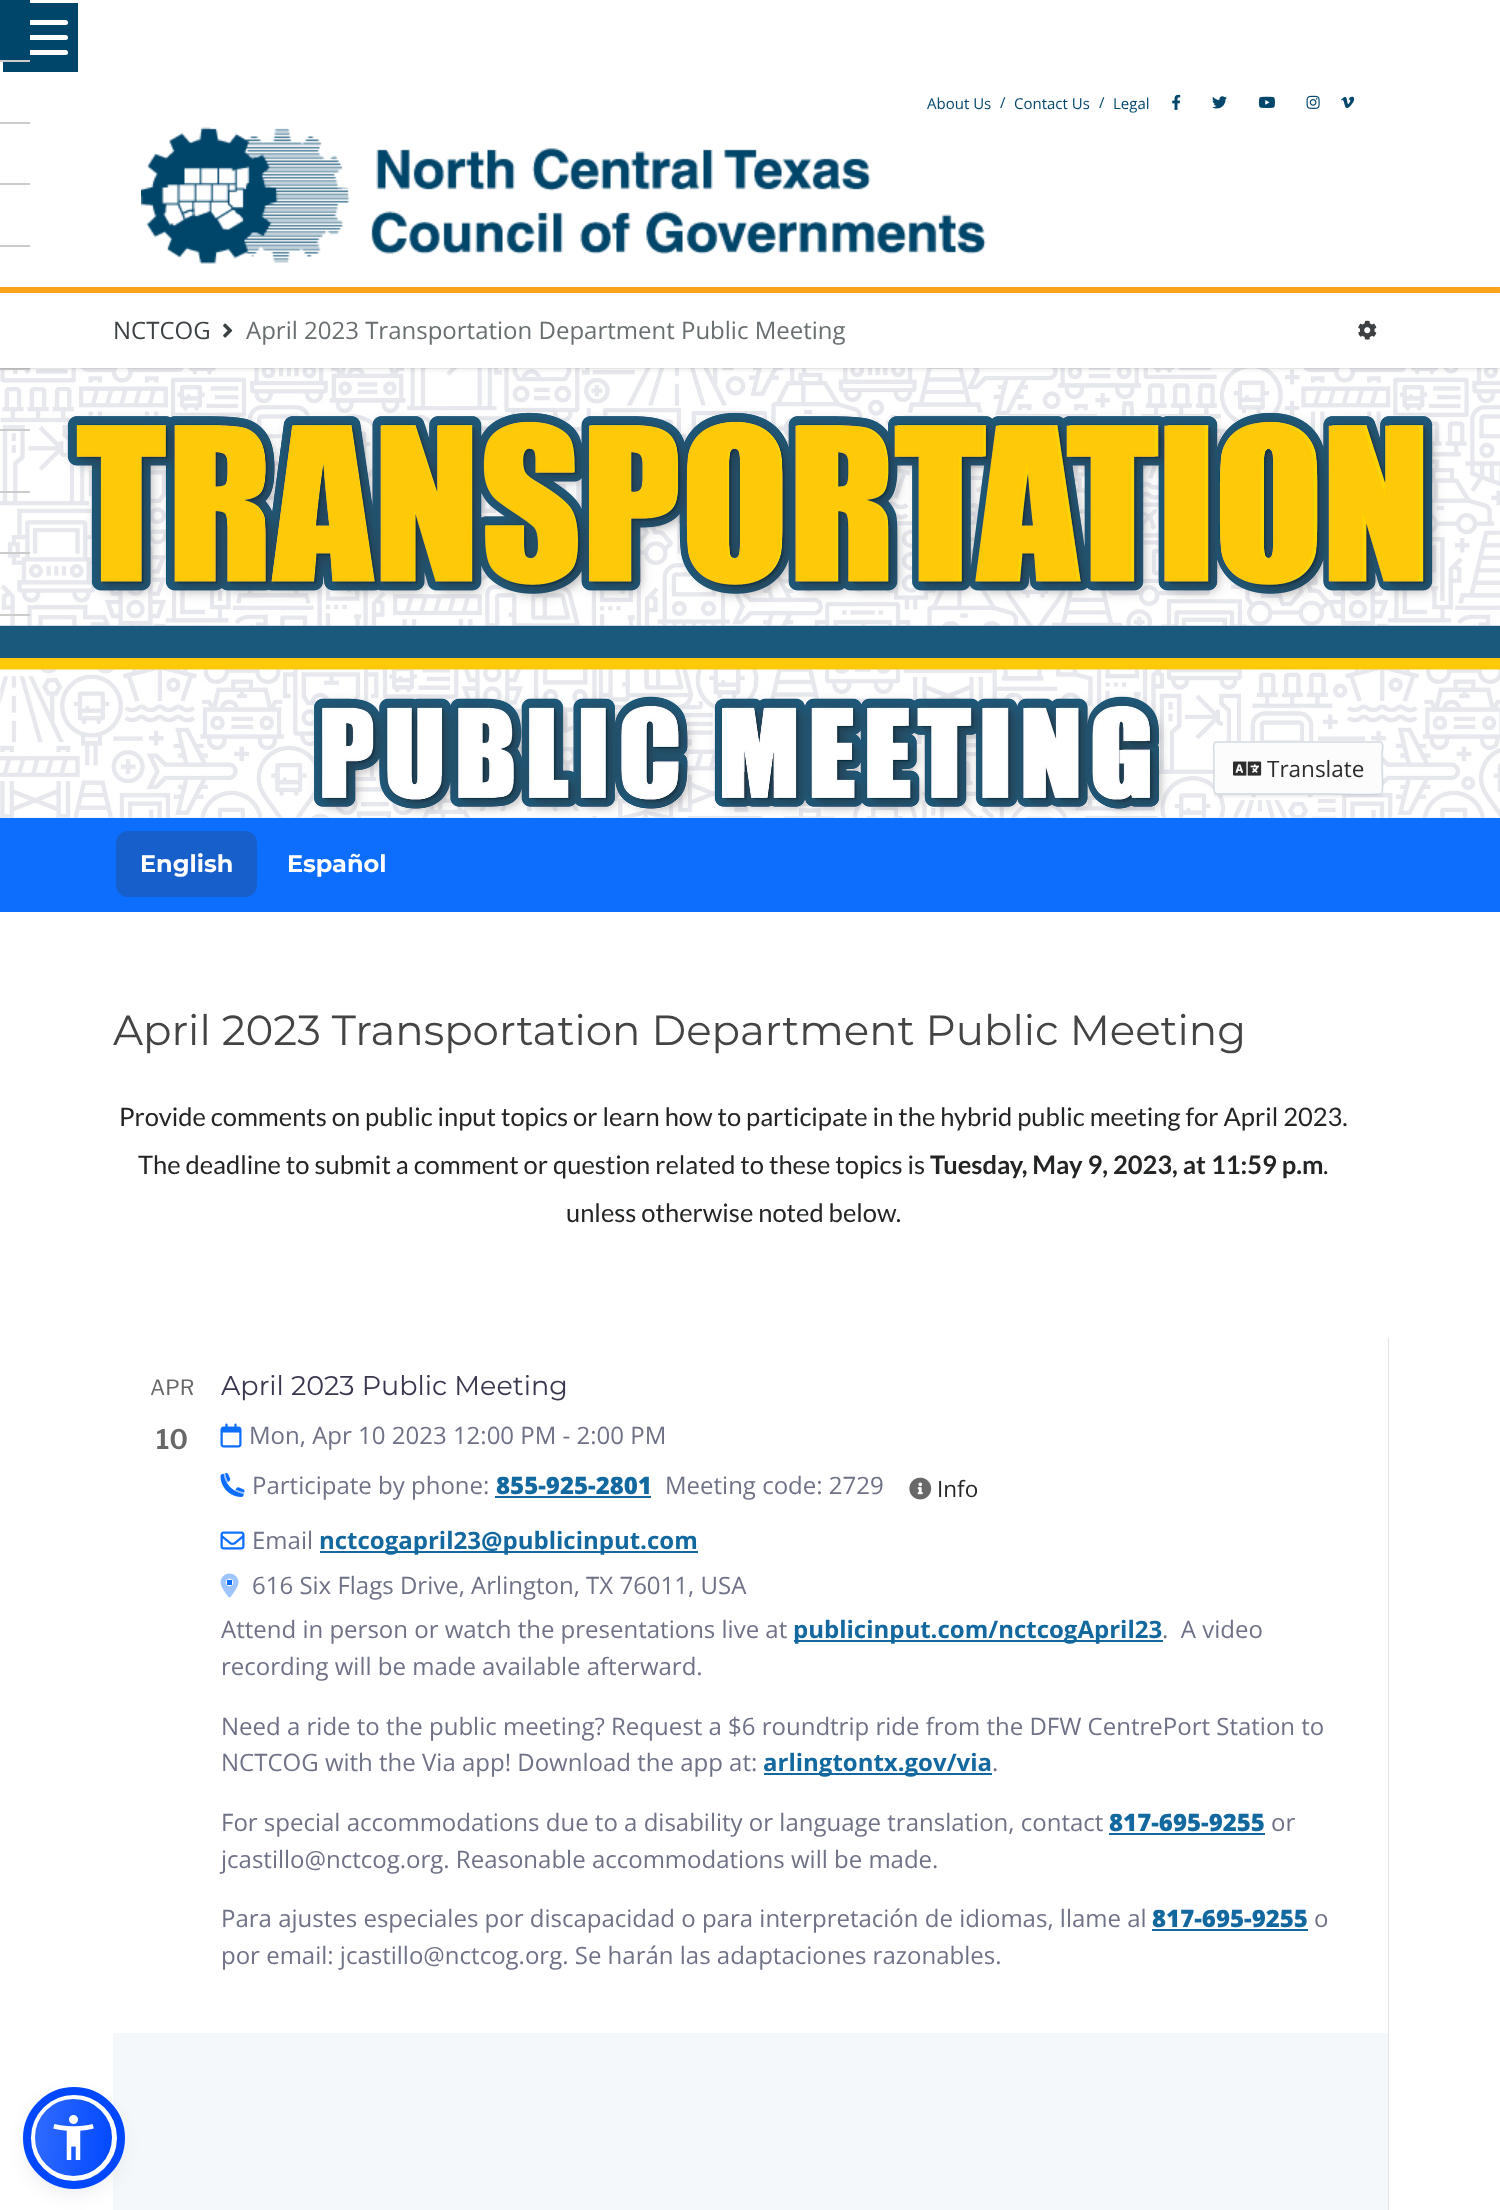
(async () => {
  const canvas = document.querySelector("canvas");
  canvas.width = 1500;
  canvas.height = 2210;
  const ctx = canvas.getContext("2d");
  ctx.miterLimit = 4;
  ctx.fontKerning = "normal";
  async function loadImage(src) {
    const img = new Image();
    img.src = src;
    await img.decode();
    return img;
  }
  let gradient, path;

  ctx.fillStyle = "#ffffff";
  ctx.fillRect(0, 0, 1500, 2210);
  ctx.fillStyle = "#f8a31a";
  ctx.fillRect(0, 287, 1500, 6);
  ctx.fillStyle = "#00456a";
  ctx.fillRect(3, 3, 75, 69);
  ctx.fillStyle = "#ffffff";
  ctx.beginPath();
  ctx.roundRect(15, 20, 53, 5, 2.5);
  ctx.fill();
  ctx.beginPath();
  ctx.roundRect(15, 35, 53, 5, 2.5);
  ctx.fill();
  ctx.beginPath();
  ctx.roundRect(15, 50, 53, 5, 2.5);
  ctx.fill();
  for (const [x, y, w, h, color] of [
    [0, 0, 30, 60, "#00456a"],
    [0, 60, 30, 2, "#cccccc"],
    [0, 122, 30, 2, "#cccccc"],
    [0, 183, 30, 2, "#cccccc"],
    [0, 245, 30, 2, "#cccccc"],
    [0, 817, 1500, 1, "#dbf1ff"],
  ]) {
    ctx.fillStyle = color;
    ctx.fillRect(x, y, w, h);
  }
  ctx.drawImage(await loadImage("img/9.png"), 0, 368, 1500, 450);
  for (const [x, y, w, h, color] of [
    [0, 368, 30, 2, "#cccccc"],
    [0, 429, 30, 2, "#cccccc"],
    [0, 491, 30, 2, "#cccccc"],
    [0, 552, 30, 2, "#cccccc"],
    [0, 614, 30, 2, "#cccccc"],
  ]) {
    ctx.fillStyle = color;
    ctx.fillRect(x, y, w, h);
  }
  ctx.drawImage(await loadImage("img/1.png"), 1172, 94, 9, 16);
  ctx.drawImage(await loadImage("img/2.png"), 1212, 96, 15, 13);
  ctx.drawImage(await loadImage("img/3.png"), 1258, 96, 17, 12);
  ctx.drawImage(await loadImage("img/4.png"), 1306, 95, 14, 14);
  ctx.drawImage(await loadImage("img/5.png"), 1341, 96, 14, 13);
  ctx.drawImage(await loadImage("img/6.png"), 141, 127, 845, 137);
  ctx.fillStyle = "rgba(0, 0, 0, 0.05)";
  ctx.fillRect(0, 368, 1500, 1);
  ctx.filter = "blur(1.5px)";
  ctx.beginPath();
  ctx.rect(0, 296, 1500, 75);
  ctx.fill();
  ctx.filter = "none";
  ctx.fillStyle = "#ffffff";
  ctx.fillRect(0, 295, 1500, 73);
  ctx.drawImage(await loadImage("img/7.png"), 223, 323, 10, 15);
  ctx.drawImage(await loadImage("img/8.png"), 1358, 320, 19, 20);
  ctx.fillStyle = "rgba(90, 90, 90, 0.1)";
  ctx.filter = "blur(1px)";
  ctx.beginPath();
  ctx.roundRect(1214, 743, 169, 54, 3);
  ctx.fill();
  ctx.filter = "none";
  ctx.fillStyle = "#fcfcfd";
  ctx.beginPath();
  ctx.roundRect(1214, 741, 169, 54, 3);
  ctx.fill();
  path = new Path2D("M1381.5 793.5C1380 795.5 1329 794 1325.5 794H1216.5L1215 793.5");
  ctx.strokeStyle = "#cbd5dd";
  ctx.lineWidth = 1.5;
  ctx.stroke(path);
  path = new Path2D("M1215 793.5C1213 791.5 1214 778.5 1214 776V752C1214 752 1212 742 1216.5 742H1380C1384.5 742 1382 752 1382 752V768C1382 771.5 1383.5 792 1381.5 793.5");
  ctx.strokeStyle = "#d2dae1";
  ctx.stroke(path);
  ctx.drawImage(await loadImage("img/10.png"), 1233, 761, 29, 15);
  ctx.fillStyle = "#0d6efd";
  ctx.fillRect(0, 818, 1500, 94);
  ctx.fillStyle = "#175fcb";
  ctx.beginPath();
  ctx.roundRect(116, 831, 141, 66, 12);
  ctx.fill();
  ctx.fillStyle = "#e2e2e2";
  path = new Path2D("M115 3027C116 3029 118 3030 120 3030H1383C1386 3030 1389 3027 1389 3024V1340C1389 1338 1388 1337 1387 1335L1388 1338V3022C1388 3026 1385 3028 1382 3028H118C117 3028 116 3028 115 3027Z");
  ctx.fill(path);
  ctx.fillStyle = "#ffffff";
  path = new Path2D("M119 1332H1382C1385.5 1332 1388 1334.5 1388 1338V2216H113V1338C113 1334.5 115.5 1332 119 1332Z");
  ctx.fill(path);
  ctx.drawImage(await loadImage("img/11.png"), 220, 1423, 22, 25);
  ctx.drawImage(await loadImage("img/12.png"), 220, 1473, 25, 24);
  ctx.drawImage(await loadImage("img/13.png"), 223, 1473, 22, 21);
  ctx.fillStyle = "#13689f";
  ctx.fillRect(495, 1496, 156, 2);
  ctx.drawImage(await loadImage("img/14.png"), 909, 1477, 23, 23);
  ctx.drawImage(await loadImage("img/15.png"), 220, 1531, 25, 19);
  ctx.fillRect(320, 1551, 378, 2);
  ctx.fillStyle = "#0d6efd";
  ctx.fillRect(227, 1580, 5, 5);
  ctx.drawImage(await loadImage("img/16.png"), 220, 1573, 19, 25);
  for (const [x, y, w, h, color] of [
    [794, 1640, 369, 2, "#13689f"],
    [764, 1773, 228, 2, "#13689f"],
    [1109, 1833, 156, 2, "#13689f"],
    [1152, 1929, 156, 2, "#13689f"],
    [113, 2033, 1275, 177, "#f5f8fa"],
  ]) {
    ctx.fillStyle = color;
    ctx.fillRect(x, y, w, h);
  }
  ctx.fillStyle = "rgba(93, 100, 148, 0.2)";
  ctx.filter = "blur(3px)";
  ctx.beginPath();
  ctx.roundRect(30, 2097, 87, 87, 43.5);
  ctx.fill();
  ctx.filter = "none";
  ctx.fillStyle = "rgba(37, 44, 97, 0.15)";
  ctx.filter = "blur(11px)";
  ctx.beginPath();
  ctx.roundRect(30, 2102, 87, 87, 43.5);
  ctx.fill();
  ctx.filter = "none";
  ctx.save();
  ctx.beginPath();
  ctx.roundRect(30, 2094, 87, 87, 43.5);
  ctx.clip();
  gradient = ctx.createLinearGradient(31, 2133, 116, 2142);
  gradient.addColorStop(0, "#326cff");
  gradient.addColorStop(1, "#0048ff");
  ctx.fillStyle = gradient;
  ctx.fillRect(35, 2099, 78, 78);
  ctx.restore();
  ctx.beginPath();
  ctx.arc(73.5, 2137.5, 41, 0, Math.PI * 2);
  ctx.strokeStyle = "#ffffff";
  ctx.lineWidth = 5;
  ctx.stroke();
  ctx.beginPath();
  ctx.arc(74, 2138, 47, 0, Math.PI * 2);
  ctx.strokeStyle = "#0048ff";
  ctx.lineWidth = 8;
  ctx.stroke();
  ctx.drawImage(await loadImage("img/17.png"), 53, 2115, 41, 45);
  ctx.font = "15px Open Sans";
  ctx.fillStyle = "#03466c";
  for (const [text, x, y] of [
    ["About Us", 927, 109],
    ["/", 1000, 108],
    ["Contact Us", 1014, 109],
    ["/", 1099, 108],
    ["Legal", 1113, 109],
  ]) {
    ctx.fillText(text, x, y);
  }
  ctx.font = "24px Open Sans";
  ctx.fillStyle = "#3c4144";
  ctx.fillText("NCTCOG", 113, 339);
  ctx.fillStyle = "#696f71";
  ctx.fillText("April 2023 Transportation Department Public Meeting", 246, 339);
  ctx.font = "22.5px Open Sans";
  ctx.fillStyle = "#2d2d2d";
  ctx.fillText("Translate", 1267, 777);
  ctx.font = "bold 24px Montserrat";
  ctx.fillStyle = "#ffffff";
  ctx.fillText("English", 140, 872);
  ctx.fillText("Español", 287, 872);
  ctx.font = "42px Montserrat";
  ctx.fillStyle = "#444444";
  ctx.fillText("April 2023 Transportation Department Public Meeting", 113, 1045);
  ctx.font = "25.5px Lato";
  ctx.fillStyle = "#222425";
  ctx.fillText("Provide comments on public input topics or learn how to participate in the hybrid public meeting for April 2023.", 119, 1126);
  ctx.fillText("The deadline to submit a comment or question related to these topics is", 138, 1174);
  ctx.font = "bold 25.5px Lato";
  ctx.fillText("Tuesday, May 9, 2023, at 11:59 p.m", 930, 1174);
  ctx.font = "25.5px Lato";
  ctx.fillText(".", 1323, 1174);
  ctx.fillText("unless otherwise noted below.", 566, 1222);
  ctx.font = "21px Libre Franklin";
  ctx.fillStyle = "#686868";
  ctx.fillText("APR", 150, 1395);
  ctx.font = "600 27px Libre Franklin";
  ctx.fillText("10", 156, 1449);
  ctx.font = "27px Montserrat";
  ctx.fillStyle = "#39364f";
  ctx.fillText("April 2023 Public Meeting", 221, 1395);
  ctx.font = "24px Open Sans";
  ctx.fillStyle = "#6f7287";
  ctx.fillText("Mon, Apr 10 2023 12:00 PM - 2:00 PM", 249, 1444);
  ctx.fillText("Participate by phone:", 252, 1494);
  ctx.font = "800 24px Open Sans";
  ctx.fillStyle = "#13689f";
  ctx.fillText("855-925-2801", 496, 1494);
  ctx.font = "24px Open Sans";
  ctx.fillStyle = "#6f7287";
  ctx.fillText("Meeting code: 2729", 665, 1494);
  ctx.font = "22.5px Open Sans";
  ctx.fillStyle = "#222425";
  ctx.fillText("Info", 937, 1497);
  ctx.font = "24px Open Sans";
  ctx.fillStyle = "#6f7287";
  ctx.fillText("Email", 252, 1549);
  ctx.font = "bold 24px Open Sans";
  ctx.fillStyle = "#13689f";
  ctx.fillText("nctcogapril23@publicinput.com", 319, 1549);
  ctx.font = "24px Open Sans";
  ctx.fillStyle = "#6f7287";
  ctx.fillText("616 Six Flags Drive, Arlington, TX 76011, USA", 252, 1594);
  ctx.fillText("Attend in person or watch the presentations live at", 221, 1638);
  ctx.font = "bold 24px Open Sans";
  ctx.fillStyle = "#13689f";
  ctx.fillText("publicinput.com/nctcogApril23", 793, 1638);
  ctx.font = "24px Open Sans";
  ctx.fillStyle = "#6f7287";
  for (const [text, x, y] of [
    [".  A video", 1162, 1638],
    ["recording will be made available afterward.", 221, 1675],
    ["Need a ride to the public meeting? Request a $6 roundtrip ride from the DFW CentrePort Station to", 221, 1735],
    ["NCTCOG with the Via app! Download the app at:", 221, 1771],
  ]) {
    ctx.fillText(text, x, y);
  }
  ctx.font = "bold 24px Open Sans";
  ctx.fillStyle = "#13689f";
  ctx.fillText("arlingtontx.gov/via", 763, 1771);
  ctx.font = "24px Open Sans";
  ctx.fillStyle = "#6f7287";
  ctx.fillText(".", 992, 1771);
  ctx.fillText("For special accommodations due to a disability or language translation, contact", 221, 1831);
  ctx.font = "800 24px Open Sans";
  ctx.fillStyle = "#13689f";
  ctx.fillText("817-695-9255", 1109, 1831);
  ctx.font = "24px Open Sans";
  ctx.fillStyle = "#6f7287";
  for (const [text, x, y] of [
    ["or", 1271, 1831],
    ["jcastillo@nctcog.org. Reasonable accommodations will be made.", 221, 1868],
    ["Para ajustes especiales por discapacidad o para interpretación de idiomas, llame al", 221, 1927],
  ]) {
    ctx.fillText(text, x, y);
  }
  ctx.font = "800 24px Open Sans";
  ctx.fillStyle = "#13689f";
  ctx.fillText("817-695-9255", 1152, 1927);
  ctx.font = "24px Open Sans";
  ctx.fillStyle = "#6f7287";
  ctx.fillText("o", 1314, 1927);
  ctx.fillText("por email: jcastillo@nctcog.org. Se harán las adaptaciones razonables.", 221, 1964);
})();
